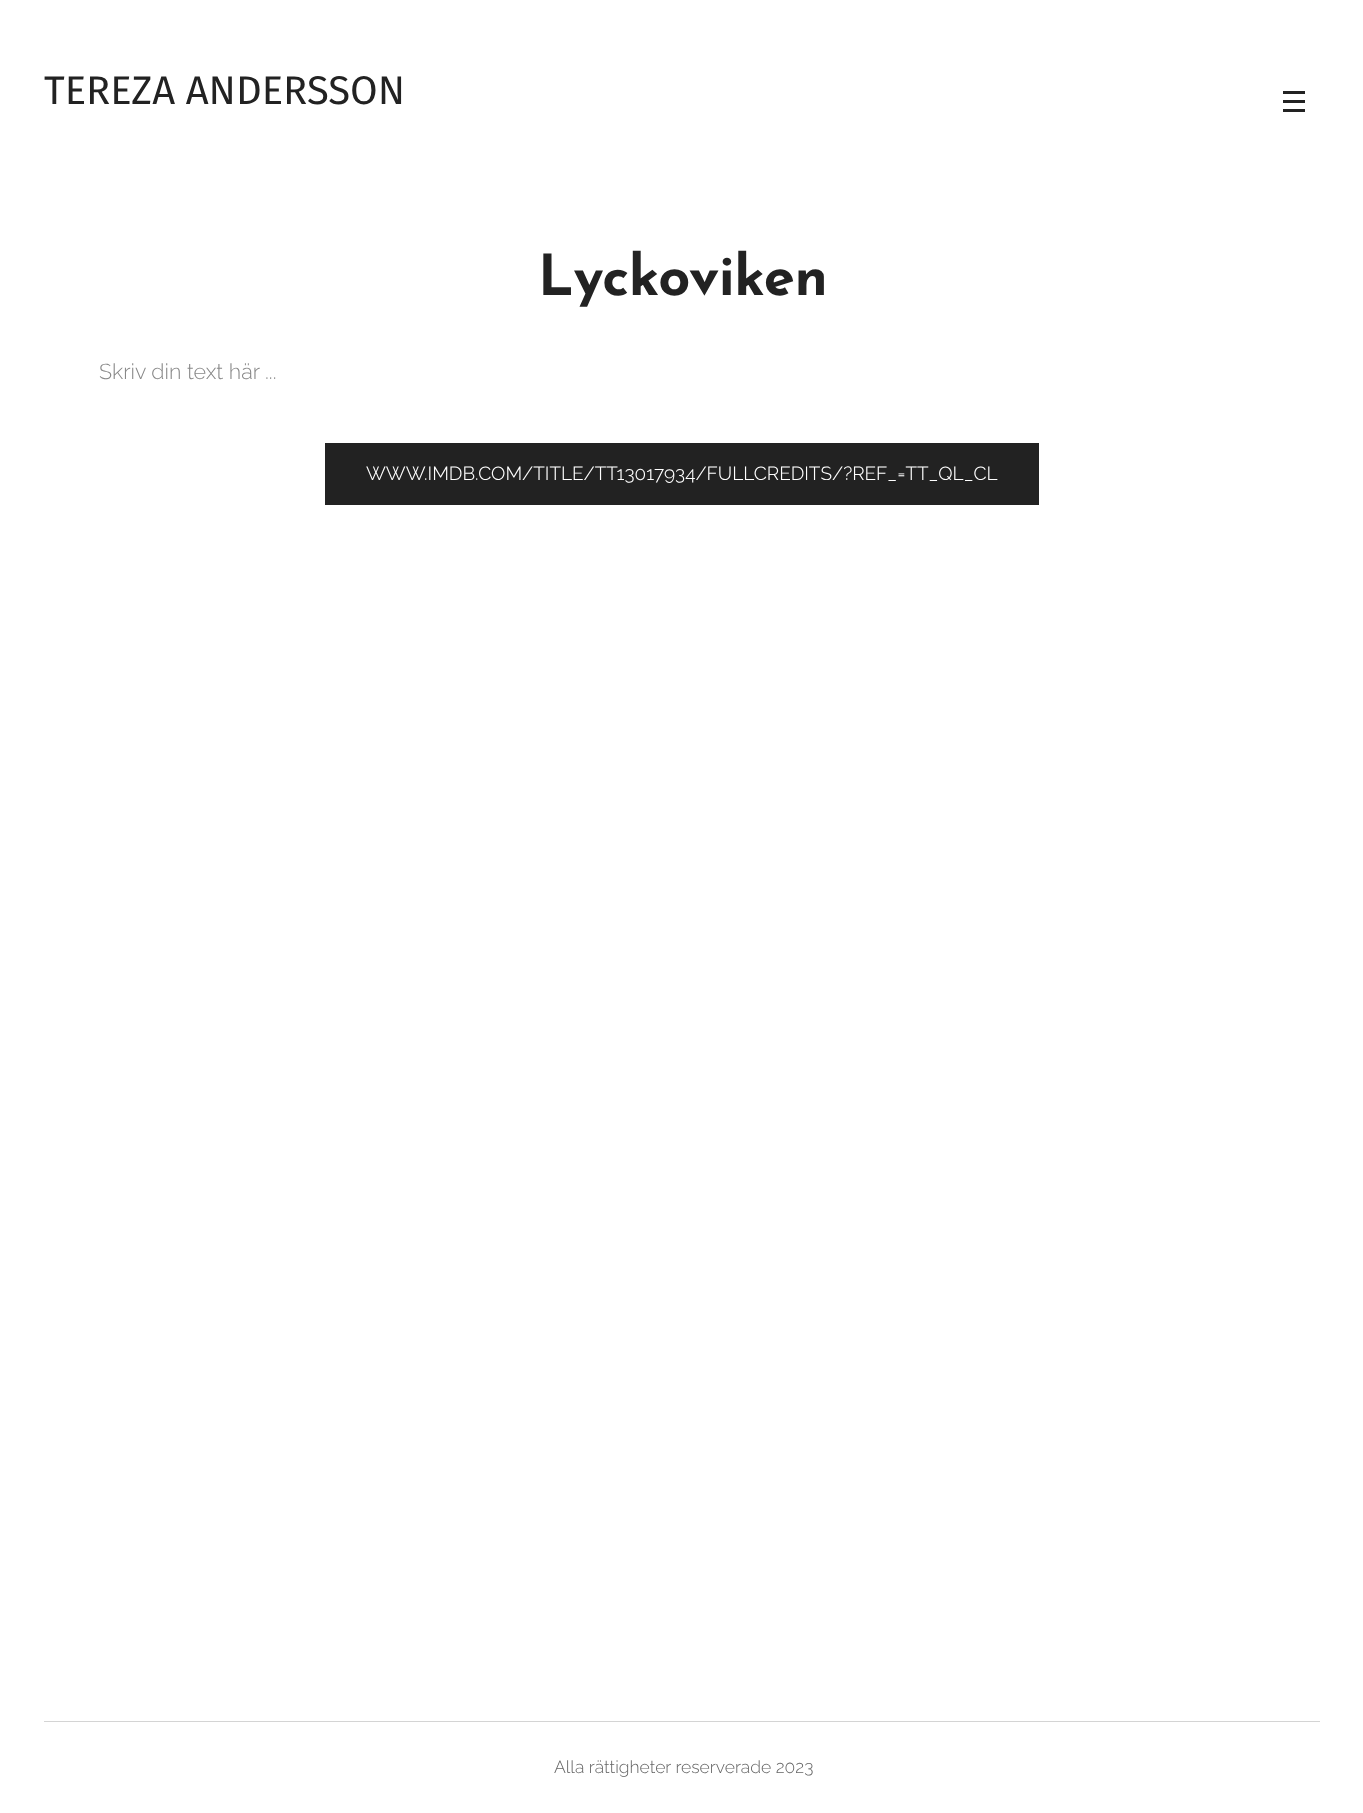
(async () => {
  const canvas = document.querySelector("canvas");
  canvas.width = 1363;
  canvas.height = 1813;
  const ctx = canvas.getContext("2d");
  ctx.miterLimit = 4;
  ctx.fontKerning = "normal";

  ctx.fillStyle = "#ffffff";
  ctx.fillRect(0, 0, 1363, 1813);
  for (const [x, y, w, h, color] of [
    [1283, 100, 22, 3, "#222222"],
    [1283, 91, 22, 3, "#222222"],
    [1283, 109, 22, 3, "#222222"],
    [325, 443, 714, 62, "#222222"],
    [44, 1721, 1276, 1, "#d4d4d4"],
  ]) {
    ctx.fillStyle = color;
    ctx.fillRect(x, y, w, h);
  }
  ctx.font = "40px Fira Sans";
  ctx.fillStyle = "#222222";
  ctx.fillText("TEREZA ANDERSSON", 44, 104);
  ctx.letterSpacing = "-0.5px";
  ctx.font = "bold 56.25px Josefin Sans";
  ctx.fillText("Lyckoviken", 538, 295);
  ctx.letterSpacing = "0px";
  ctx.font = "300 21.5px Raleway";
  ctx.fillStyle = "#888888";
  ctx.fillText("Skriv din text här ...", 99, 379);
  ctx.font = "300 19px 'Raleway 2'";
  ctx.fillStyle = "#ffffff";
  ctx.fillText("WWW.IMDB.COM/TITLE/TT13017934/FULLCREDITS/?REF_=TT_QL_CL", 366, 480);
  ctx.font = "300 17.5px Raleway";
  ctx.fillStyle = "#666666";
  ctx.fillText("Alla rättigheter reserverade 2023", 554, 1773);
})();
